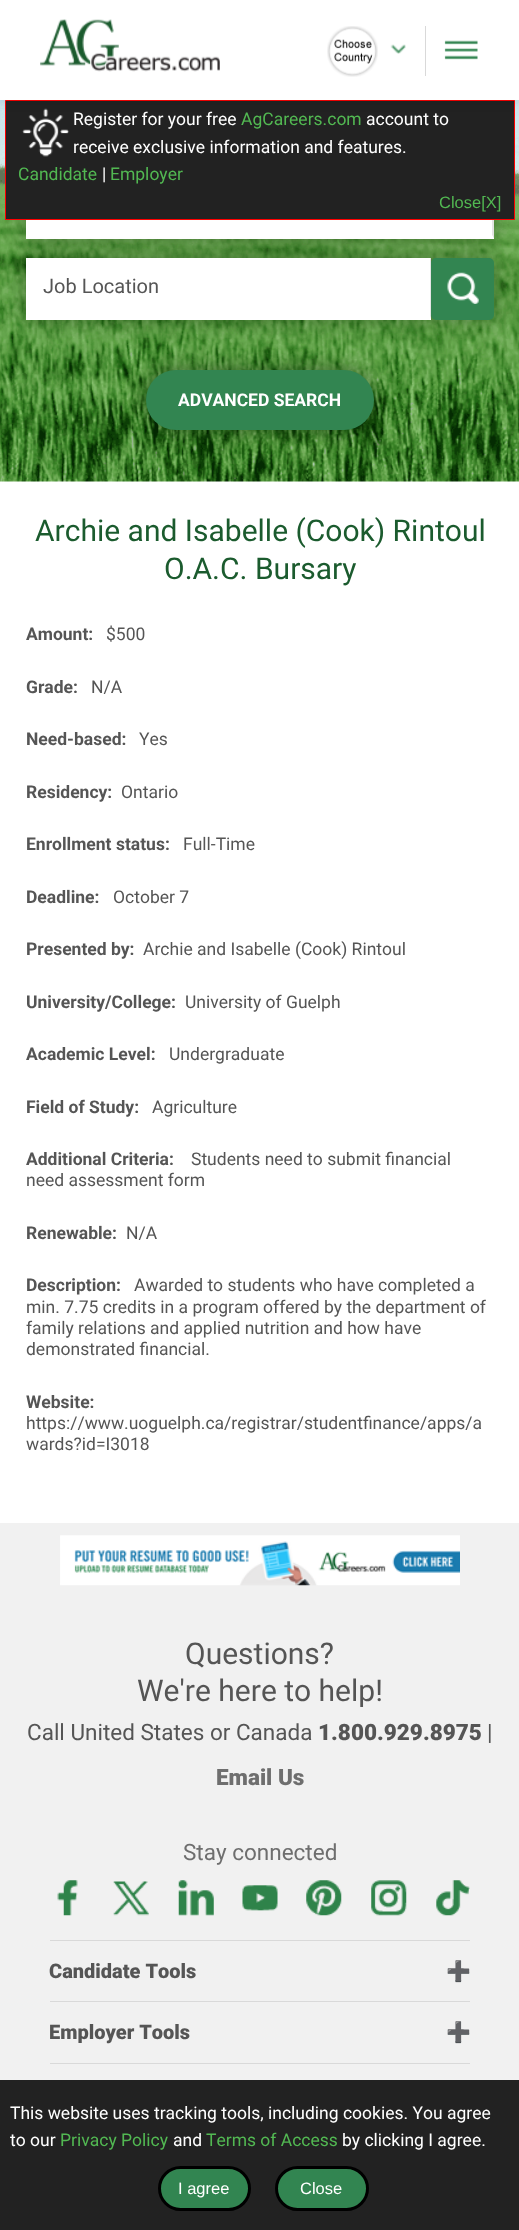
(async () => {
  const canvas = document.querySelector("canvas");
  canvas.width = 519;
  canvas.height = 2230;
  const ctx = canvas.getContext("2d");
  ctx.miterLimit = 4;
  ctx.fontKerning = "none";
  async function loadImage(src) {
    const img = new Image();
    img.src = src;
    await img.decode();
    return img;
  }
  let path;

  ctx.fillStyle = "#ffffff";
  ctx.fillRect(0, 0, 519, 2230);
  ctx.drawImage(await loadImage("img/6.png"), 0, 100, 519, 382);
  ctx.fillStyle = "rgba(0, 0, 0, 0.3)";
  ctx.filter = "blur(9.5px)";
  ctx.beginPath();
  ctx.rect(26, 176, 468, 63);
  ctx.fill();
  ctx.filter = "none";
  ctx.fillStyle = "#ffffff";
  ctx.fillRect(26, 220, 468, 19);
  ctx.fillStyle = "#e4e4e4";
  path = new Path2D("M494 176V239L492 235V176Z");
  ctx.fill(path);
  ctx.fillStyle = "#222222";
  ctx.beginPath();
  ctx.rect(5.5, 100.5, 509, 119);
  ctx.fill();
  ctx.strokeStyle = "#ff0000";
  ctx.stroke();
  ctx.drawImage(await loadImage("img/5.png"), 22, 108, 47, 49);
  ctx.fillStyle = "rgba(0, 0, 0, 0.15)";
  ctx.filter = "blur(6px)";
  ctx.beginPath();
  ctx.rect(0, 0, 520, 100);
  ctx.fill();
  ctx.filter = "none";
  ctx.fillStyle = "#ffffff";
  ctx.fillRect(0, 0, 519, 100);
  ctx.drawImage(await loadImage("img/1.png"), 40, 19, 180, 53);
  ctx.fillStyle = "#d9d9d9";
  ctx.fillRect(425, 26, 1, 50);
  ctx.drawImage(await loadImage("img/2.png"), 390, 44, 16, 10);
  ctx.drawImage(await loadImage("img/3.png"), 327, 26, 51, 51);
  ctx.drawImage(await loadImage("img/4.png"), 444, 40, 34, 20);
  ctx.fillStyle = "#ffffff";
  path = new Path2D("M494 239H26V235H492Z");
  ctx.fill(path);
  ctx.fillStyle = "rgba(0, 0, 0, 0.3)";
  ctx.filter = "blur(9.5px)";
  ctx.beginPath();
  ctx.rect(26, 258, 468, 62);
  ctx.fill();
  ctx.filter = "none";
  ctx.fillStyle = "#ffffff";
  ctx.fillRect(26, 258, 405, 62);
  ctx.fillStyle = "#e4e4e4";
  path = new Path2D("M431 258V320L430 316V258Z");
  ctx.fill(path);
  ctx.fillStyle = "#ffffff";
  path = new Path2D("M431 320H26V316H430Z");
  ctx.fill(path);
  ctx.fillStyle = "#328551";
  ctx.beginPath();
  ctx.roundRect(431, 258, 63, 62, 5);
  ctx.fill();
  ctx.drawImage(await loadImage("img/7.png"), 447, 272, 32, 32);
  ctx.fillStyle = "rgba(0, 0, 0, 0.4)";
  ctx.filter = "blur(9.5px)";
  ctx.beginPath();
  ctx.roundRect(146, 370, 228, 60, 30);
  ctx.fill();
  ctx.filter = "none";
  ctx.fillStyle = "#328551";
  ctx.beginPath();
  ctx.roundRect(146, 370, 228, 60, 30);
  ctx.fill();
  ctx.fillStyle = "#f1f1f1";
  ctx.fillRect(0, 1523, 519, 557);
  ctx.drawImage(await loadImage("img/8.png"), 60, 1535, 400, 51);
  ctx.drawImage(await loadImage("img/9.png"), 57, 1880, 21, 36);
  ctx.drawImage(await loadImage("img/10.png"), 113, 1881, 36, 35);
  ctx.drawImage(await loadImage("img/11.png"), 178, 1880, 36, 36);
  ctx.drawImage(await loadImage("img/12.png"), 242, 1885, 36, 26);
  ctx.drawImage(await loadImage("img/13.png"), 306, 1880, 36, 36);
  ctx.drawImage(await loadImage("img/14.png"), 371, 1880, 36, 36);
  ctx.drawImage(await loadImage("img/15.png"), 436, 1880, 34, 36);
  ctx.fillStyle = "#d9d9d9";
  ctx.fillRect(50, 1940, 420, 1);
  ctx.drawImage(await loadImage("img/16.png"), 448, 1962, 19, 19);
  ctx.fillRect(50, 2001, 420, 1);
  ctx.drawImage(await loadImage("img/17.png"), 448, 2024, 19, 18);
  ctx.fillRect(50, 2063, 420, 1);
  ctx.fillStyle = "#222222";
  ctx.fillRect(0, 2080, 519, 150);
  ctx.fillStyle = "#328551";
  ctx.beginPath();
  ctx.roundRect(159.5, 2167.5, 90, 42, 21);
  ctx.fill();
  ctx.strokeStyle = "#000000";
  ctx.lineWidth = 3;
  ctx.stroke();
  ctx.beginPath();
  ctx.roundRect(276.5, 2167.5, 91, 42, 21);
  ctx.fill();
  ctx.stroke();
  ctx.font = "17.5px Roboto";
  ctx.fillStyle = "#ffffff";
  ctx.fillText("Register for your free", 73, 125);
  ctx.fillStyle = "#52b852";
  ctx.fillText("AgCareers.com", 241, 125);
  ctx.fillStyle = "#ffffff";
  ctx.fillText("account to", 366, 125);
  ctx.fillText("receive exclusive information and features.", 73, 153);
  ctx.fillStyle = "#52b852";
  ctx.fillText("Candidate", 18, 180);
  ctx.fillStyle = "#ffffff";
  ctx.fillText("|", 102, 180);
  ctx.fillStyle = "#52b852";
  ctx.fillText("Employer", 110, 180);
  ctx.font = "16.5px Liberation Sans";
  ctx.fillText("Close[X]", 439, 208);
  ctx.font = "20px Roboto";
  ctx.fillStyle = "#555555";
  ctx.fillText("Job Location", 43, 293);
  ctx.font = "bold 17.5px Roboto";
  ctx.fillStyle = "#ffffff";
  ctx.fillText("ADVANCED SEARCH", 178, 406);
  ctx.font = "30px Roboto";
  ctx.fillStyle = "#1b5b2e";
  ctx.fillText("Archie and Isabelle (Cook) Rintoul", 35, 541);
  ctx.fillText("O.A.C. Bursary", 164, 579);
  ctx.font = "bold 17.5px Roboto";
  ctx.fillStyle = "#555555";
  ctx.fillText("Amount:", 26, 640);
  ctx.font = "17.5px Roboto";
  ctx.fillText("$500", 106, 640);
  ctx.font = "bold 17.5px Roboto";
  ctx.fillText("Grade:", 26, 693);
  ctx.font = "17.5px Roboto";
  ctx.fillText("N/A", 91, 693);
  ctx.font = "bold 17.5px Roboto";
  ctx.fillText("Need-based:", 26, 745);
  ctx.font = "17.5px Roboto";
  ctx.fillText("Yes", 139, 745);
  ctx.font = "bold 17.5px Roboto";
  ctx.fillText("Residency:", 26, 798);
  ctx.font = "17.5px Roboto";
  ctx.fillText("Ontario", 121, 798);
  ctx.font = "bold 17.5px Roboto";
  ctx.fillText("Enrollment status:", 26, 850);
  ctx.font = "17.5px Roboto";
  ctx.fillText("Full-Time", 183, 850);
  ctx.font = "bold 17.5px Roboto";
  ctx.fillText("Deadline:", 26, 903);
  ctx.font = "17.5px Roboto";
  ctx.fillText("October 7", 113, 903);
  ctx.font = "bold 17.5px Roboto";
  ctx.fillText("Presented by:", 26, 955);
  ctx.font = "17.5px Roboto";
  ctx.fillText("Archie and Isabelle (Cook) Rintoul", 143, 955);
  ctx.font = "bold 17.5px Roboto";
  ctx.fillText("University/College:", 26, 1008);
  ctx.font = "17.5px Roboto";
  ctx.fillText("University of Guelph", 185, 1008);
  ctx.font = "bold 17.5px Roboto";
  ctx.fillText("Academic Level:", 26, 1060);
  ctx.font = "17.5px Roboto";
  ctx.fillText("Undergraduate", 169, 1060);
  ctx.font = "bold 17.5px Roboto";
  ctx.fillText("Field of Study:", 26, 1113);
  ctx.font = "17.5px Roboto";
  ctx.fillText("Agriculture", 152, 1113);
  ctx.font = "bold 17.5px Roboto";
  ctx.fillText("Additional Criteria:", 26, 1165);
  ctx.font = "17.5px Roboto";
  ctx.fillText("Students need to submit financial", 191, 1165);
  ctx.fillText("need assessment form", 26, 1186);
  ctx.font = "bold 17.5px Roboto";
  ctx.fillText("Renewable:", 26, 1239);
  ctx.font = "17.5px Roboto";
  ctx.fillText("N/A", 126, 1239);
  ctx.font = "bold 17.5px Roboto";
  ctx.fillText("Description:", 26, 1291);
  ctx.font = "17.5px Roboto";
  for (const [text, x, y] of [
    ["Awarded to students who have completed a", 134, 1291],
    ["min. 7.75 credits in a program offered by the department of", 26, 1313],
    ["family relations and applied nutrition and how have", 26, 1334],
    ["demonstrated financial.", 26, 1355],
  ]) {
    ctx.fillText(text, x, y);
  }
  ctx.font = "bold 17.5px Roboto";
  ctx.fillText("Website:", 26, 1408);
  ctx.font = "17.5px Roboto";
  ctx.fillText("https://www.uoguelph.ca/registrar/studentfinance/apps/a", 26, 1429);
  ctx.fillText("wards?id=I3018", 26, 1450);
  ctx.font = "30px Roboto";
  ctx.fillText("Questions?", 185, 1664);
  ctx.fillText("We're here to help!", 137, 1701);
  ctx.font = "22.5px Roboto";
  ctx.fillText("Call United States or Canada", 27, 1740);
  ctx.font = "900 22.5px Roboto";
  ctx.fillText("1.800.929.8975", 318, 1740);
  ctx.font = "22.5px Roboto";
  ctx.fillText("|", 487, 1740);
  ctx.font = "900 22.5px Roboto";
  ctx.fillStyle = "#6e6e6e";
  ctx.fillText("Email Us", 216, 1785);
  ctx.font = "22.5px Roboto";
  ctx.fillText("Stay connected", 183, 1860);
  ctx.font = "900 20px Roboto";
  ctx.fillStyle = "#555555";
  ctx.fillText("Candidate Tools", 49, 1978);
  ctx.font = "bold 20px Noto Color Emoji";
  ctx.fillStyle = "#d5e1da";
  ctx.fillText("➕", 446, 1978);
  ctx.font = "900 20px Roboto";
  ctx.fillStyle = "#555555";
  ctx.fillText("Employer Tools", 49, 2039);
  ctx.font = "bold 20px Noto Color Emoji";
  ctx.fillStyle = "#d5e1da";
  ctx.fillText("➕", 446, 2039);
  ctx.font = "17.5px Roboto";
  ctx.fillStyle = "#ffffff";
  ctx.fillText("This website uses tracking tools, including cookies. You agree", 10, 2119);
  ctx.fillText("to our", 10, 2146);
  ctx.fillStyle = "#52b852";
  ctx.fillText("Privacy Policy", 60, 2146);
  ctx.fillStyle = "#ffffff";
  ctx.fillText("and", 173, 2146);
  ctx.fillStyle = "#52b852";
  ctx.fillText("Terms of Access", 206, 2146);
  ctx.fillStyle = "#ffffff";
  ctx.fillText("by clicking I agree.", 342, 2146);
  ctx.font = "16.5px Liberation Sans";
  ctx.fillText("I agree", 178, 2194);
  ctx.fillText("Close", 300, 2194);
})();
